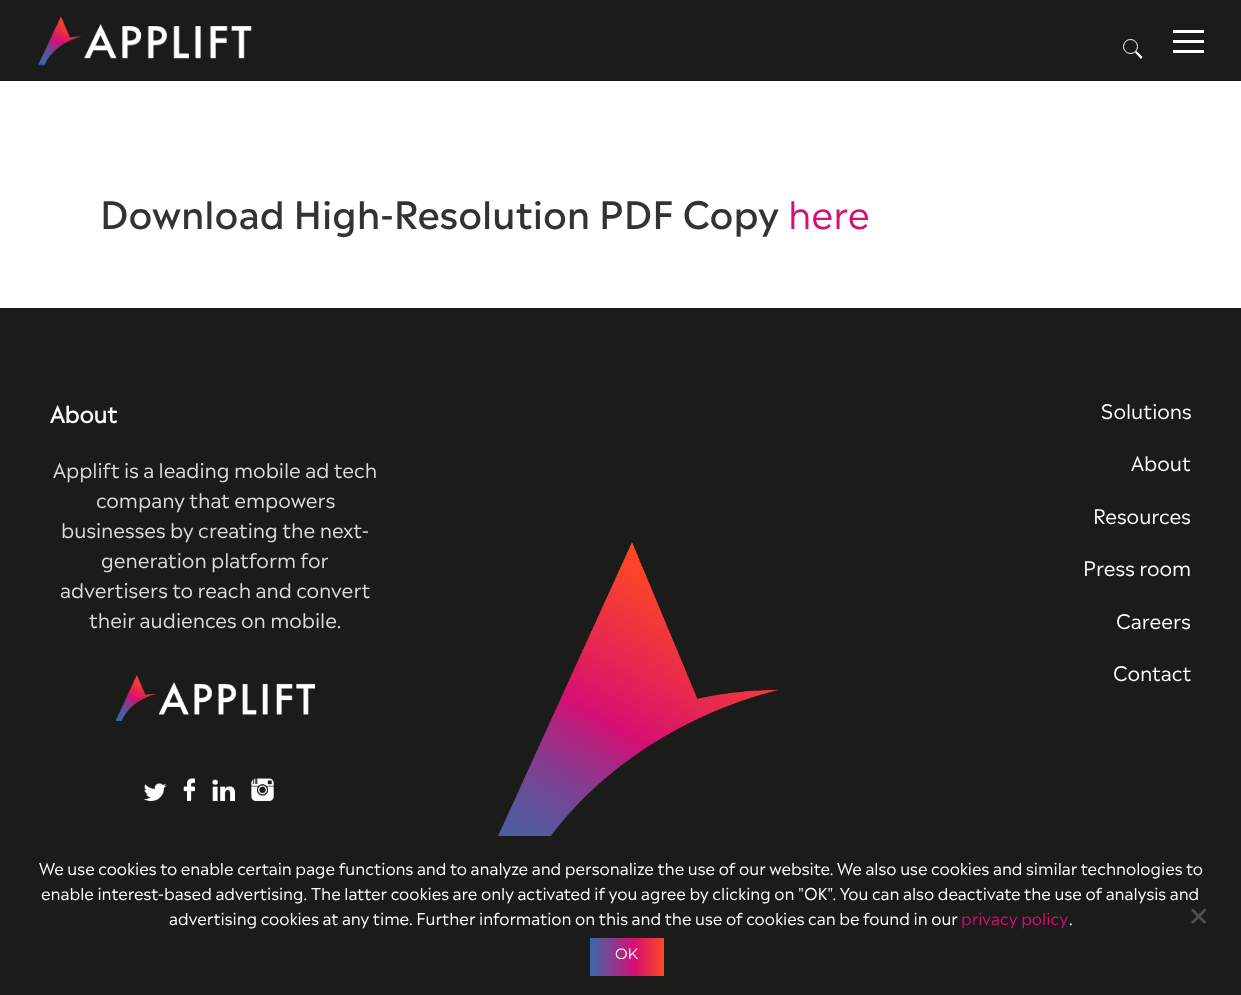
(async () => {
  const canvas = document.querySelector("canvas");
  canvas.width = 1241;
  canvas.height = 995;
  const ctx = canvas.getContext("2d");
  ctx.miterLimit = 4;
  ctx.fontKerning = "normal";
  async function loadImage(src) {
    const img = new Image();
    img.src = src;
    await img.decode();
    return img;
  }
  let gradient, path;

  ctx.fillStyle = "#ffffff";
  ctx.fillRect(0, 0, 1241, 995);
  ctx.fillStyle = "#1b1b1a";
  ctx.fillRect(0, 0, 1241, 81);
  ctx.drawImage(await loadImage("img/1.png"), 38, 16, 214, 50);
  ctx.fillStyle = "#ffffff";
  path = new Path2D("M1135 52.5L1136.5 51L1142.5 57L1141 59Z");
  ctx.fill(path);
  ctx.beginPath();
  ctx.arc(1130.5, 46.5, 7, 0, Math.PI * 2);
  ctx.strokeStyle = "#ffffff";
  ctx.stroke();
  for (const [x, y, w, h, color] of [
    [1173, 30, 31, 3, "#ffffff"],
    [1173, 40, 31, 3, "#ffffff"],
    [1173, 50, 31, 3, "#ffffff"],
    [0, 308, 1241, 687, "#1b1b1a"],
  ]) {
    ctx.fillStyle = color;
    ctx.fillRect(x, y, w, h);
  }
  ctx.drawImage(await loadImage("img/2.png"), 498, 542, 280, 294);
  ctx.drawImage(await loadImage("img/3.png"), 115, 675, 200, 46);
  ctx.drawImage(await loadImage("img/4.png"), 143, 783, 24, 18);
  ctx.drawImage(await loadImage("img/5.png"), 183, 778, 12, 23);
  ctx.drawImage(await loadImage("img/6.png"), 212, 779, 23, 22);
  ctx.drawImage(await loadImage("img/7.png"), 251, 778, 23, 23);
  ctx.fillStyle = "#4e4e4d";
  path = new Path2D("M1204.5 908.5L1206.5 910.5L1193 924L1191 922Z");
  ctx.fill(path);
  path = new Path2D("M1191 910.5L1193 908.5L1206.5 922L1204.5 924Z");
  ctx.fill(path);
  gradient = ctx.createLinearGradient(590, 957, 664, 957);
  gradient.addColorStop(0, "#3b67a8");
  gradient.addColorStop(0.6, "#d50f74");
  gradient.addColorStop(1, "#ff4922");
  ctx.fillStyle = gradient;
  ctx.fillRect(590, 938, 74, 38);
  ctx.font = "500 37.5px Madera";
  ctx.fillStyle = "#333333";
  ctx.fillText("Download High-Resolution PDF Copy", 100, 229);
  ctx.font = "37.5px Madera";
  ctx.fillStyle = "#d50f74";
  ctx.fillText("here", 788, 229);
  ctx.font = "bold 22.5px Madera";
  ctx.fillStyle = "#f9f9f9";
  ctx.fillText("About", 50, 423);
  ctx.font = "20px Madera";
  ctx.fillStyle = "#dddddd";
  for (const [text, x, y] of [
    ["Applift is a leading mobile ad tech", 53, 478],
    ["company that empowers", 96, 508],
    ["businesses by creating the next-", 61, 538],
    ["generation platform for", 101, 568],
    ["advertisers to reach and convert", 60, 598],
    ["their audiences on mobile.", 89, 628],
  ]) {
    ctx.fillText(text, x, y);
  }
  ctx.fillStyle = "#ffffff";
  for (const [text, x, y] of [
    ["Solutions", 1101, 419],
    ["About", 1131, 471],
    ["Resources", 1093, 524],
    ["Press room", 1083, 576],
    ["Careers", 1116, 629],
    ["Contact", 1113, 681],
  ]) {
    ctx.fillText(text, x, y);
  }
  ctx.font = "16.25px Madera";
  for (const [text, x, y] of [
    ["We use cookies to enable certain page functions and to analyze and personalize the use of our website. We also use cookies and similar technologies to", 39, 875],
    ["enable interest-based advertising. The latter cookies are only activated if you agree by clicking on \"OK\". You can also deactivate the use of analysis and", 41, 900],
    ["advertising cookies at any time. Further information on this and the use of cookies can be found in our", 169, 925],
  ]) {
    ctx.fillText(text, x, y);
  }
  ctx.fillStyle = "#d50f74";
  ctx.fillText("privacy policy", 961, 925);
  ctx.fillStyle = "#ffffff";
  ctx.fillText(".", 1069, 925);
  ctx.font = "15px Montserrat";
  ctx.fillText("OK", 615, 959);
})();
